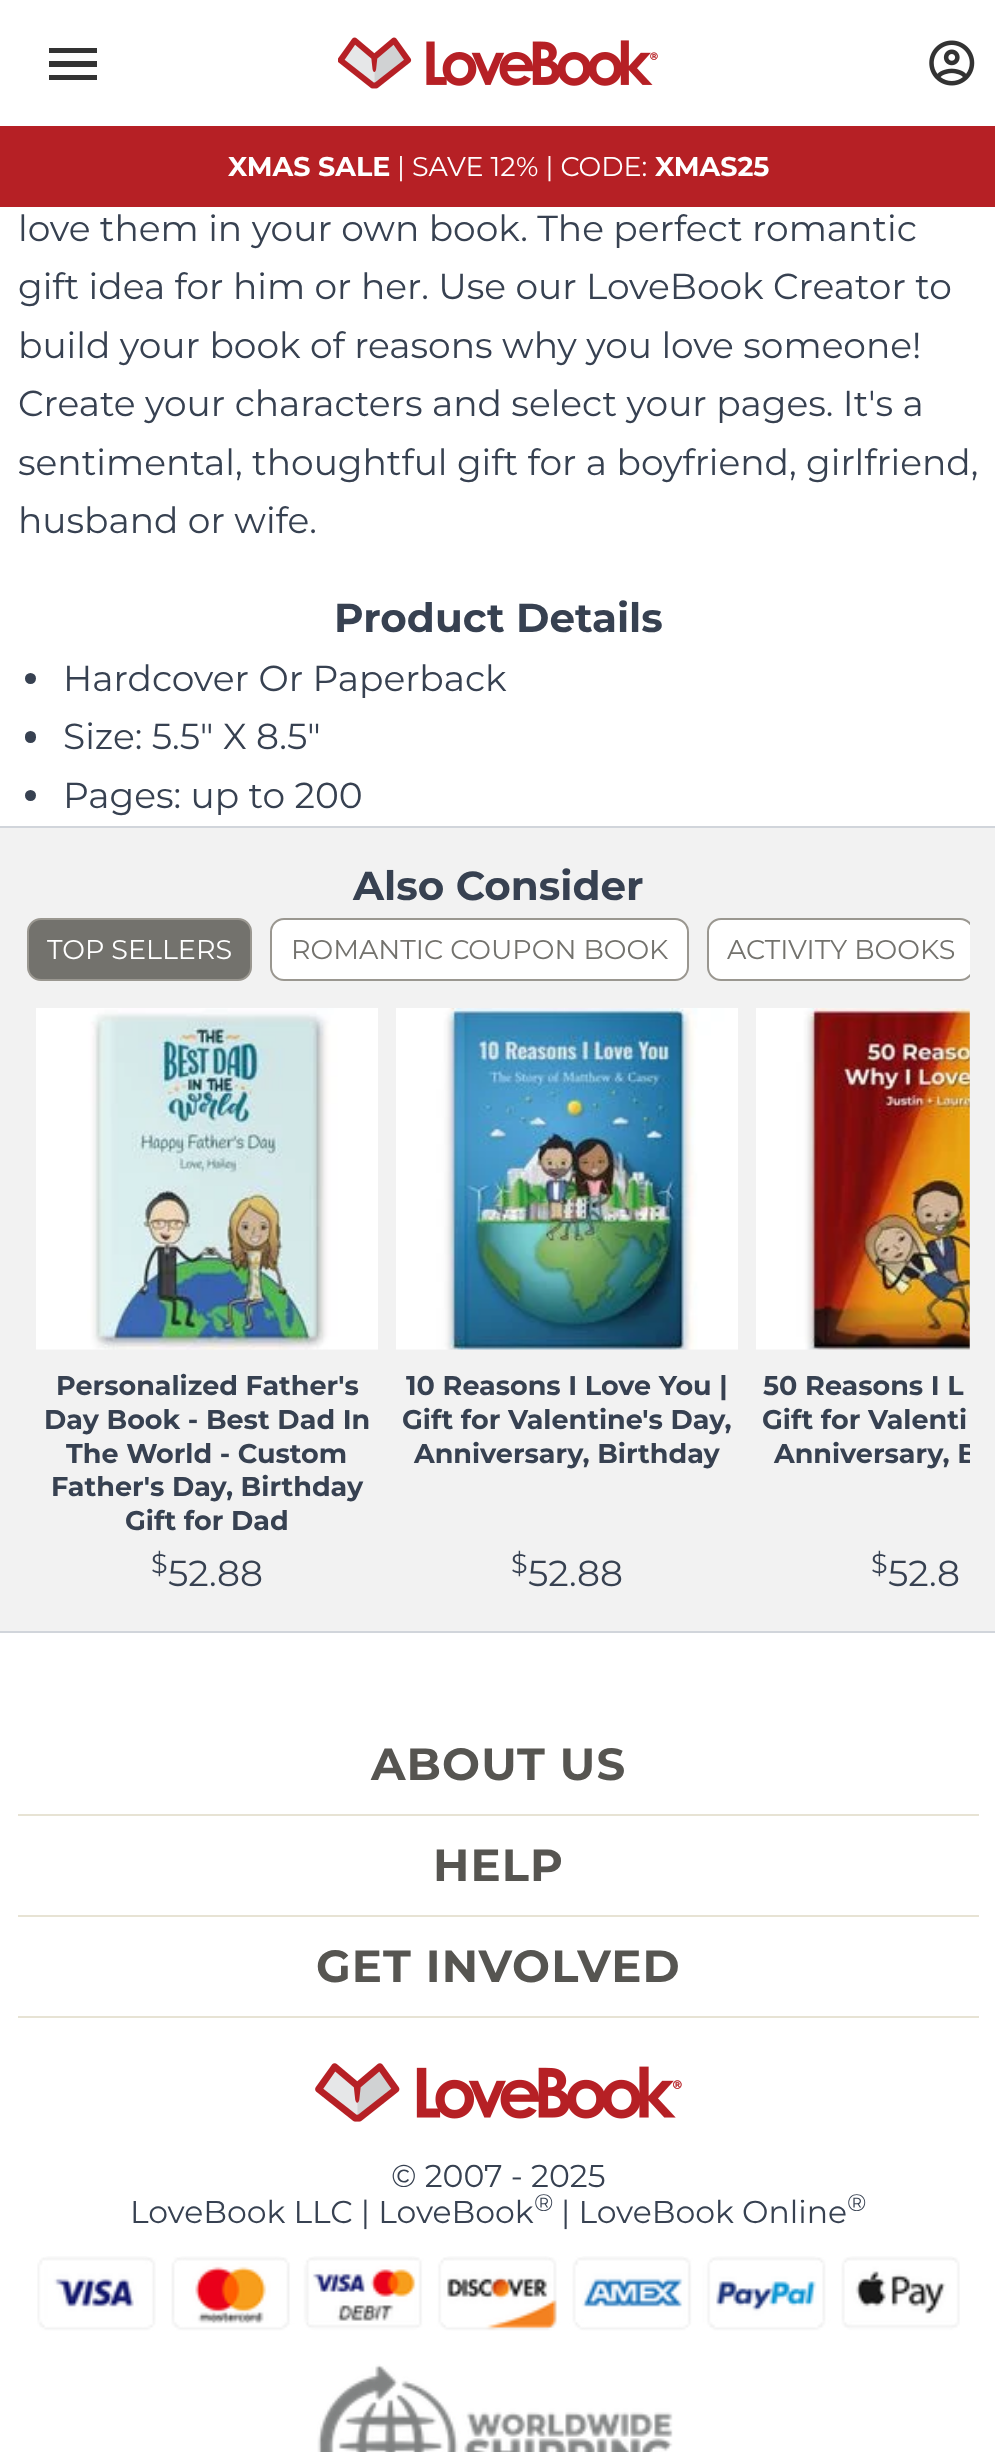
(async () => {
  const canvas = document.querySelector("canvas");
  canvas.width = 995;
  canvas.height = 2452;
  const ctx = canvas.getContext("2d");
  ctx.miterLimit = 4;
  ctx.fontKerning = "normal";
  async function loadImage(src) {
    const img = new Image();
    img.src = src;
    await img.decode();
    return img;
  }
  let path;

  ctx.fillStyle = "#ffffff";
  ctx.fillRect(0, 0, 995, 2452);
  ctx.fillStyle = "#333333";
  path = new Path2D("M49 48H97V53H49ZM49 61H97V67H49ZM49 75H97V80H49Z");
  ctx.fill(path);
  ctx.drawImage(await loadImage("img/1.png"), 338, 37, 320, 52);
  ctx.drawImage(await loadImage("img/2.png"), 929, 40, 46, 46);
  ctx.fillStyle = "#b62025";
  ctx.fillRect(0, 126, 995, 81);
  ctx.fillStyle = "#374151";
  ctx.beginPath();
  ctx.arc(30.5, 678.5, 5.5, 0, Math.PI * 2);
  ctx.fill();
  ctx.beginPath();
  ctx.roundRect(25, 731, 11, 12, 5.5);
  ctx.fill();
  ctx.beginPath();
  ctx.arc(30.5, 795.5, 5.5, 0, Math.PI * 2);
  ctx.fill();
  for (const [x, y, w, h, color] of [
    [0, 828, 995, 803, "#f2f2f2"],
    [0, 826, 995, 2, "#d1d5db"],
    [0, 1631, 995, 2, "#d1d5db"],
  ]) {
    ctx.fillStyle = color;
    ctx.fillRect(x, y, w, h);
  }
  ctx.fillStyle = "#73726d";
  ctx.beginPath();
  ctx.roundRect(28, 919, 223, 61, 13);
  ctx.fill();
  ctx.strokeStyle = "#9a9790";
  ctx.lineWidth = 2;
  ctx.stroke();
  ctx.fillStyle = "#ffffff";
  ctx.beginPath();
  ctx.roundRect(271, 919, 417, 61, 13);
  ctx.fill();
  ctx.stroke();
  ctx.save();
  ctx.beginPath();
  ctx.rect(27, 918, 943, 81);
  ctx.clip();
  ctx.beginPath();
  ctx.roundRect(708, 919, 265, 61, 13);
  ctx.fill();
  ctx.stroke();
  ctx.restore();
  ctx.drawImage(await loadImage("img/3.png"), 36, 1008, 342, 342);
  ctx.drawImage(await loadImage("img/4.png"), 396, 1008, 342, 342);
  ctx.drawImage(await loadImage("img/5.png"), 756, 1008, 214, 342);
  for (const [x, y, w, h, color] of [
    [18, 1814, 961, 2, "#e7e3d4"],
    [18, 1915, 961, 2, "#e7e3d4"],
    [18, 2016, 961, 2, "#e7e3d4"],
  ]) {
    ctx.fillStyle = color;
    ctx.fillRect(x, y, w, h);
  }
  ctx.drawImage(await loadImage("img/6.png"), 315, 2063, 367, 59);
  ctx.drawImage(await loadImage("img/7.png"), 37, 2256, 923, 75);
  ctx.drawImage(await loadImage("img/8.png"), 317, 2364, 356, 88);
  ctx.font = "bold 27px Montserrat";
  ctx.fillStyle = "#ffffff";
  ctx.fillText("XMAS SALE", 228, 176);
  ctx.font = "27px Montserrat";
  ctx.fillText("| SAVE 12% | CODE:", 397, 176);
  ctx.font = "bold 27px Montserrat";
  ctx.fillText("XMAS25", 655, 176);
  ctx.font = "36px Montserrat";
  ctx.fillStyle = "#374151";
  for (const [text, x, y] of [
    ["love them in your own book. The perfect romantic", 18, 241],
    ["gift idea for him or her. Use our LoveBook Creator to", 18, 299],
    ["build your book of reasons why you love someone!", 18, 358],
    ["Create your characters and select your pages. It's a", 18, 416],
    ["sentimental, thoughtful gift for a boyfriend, girlfriend,", 18, 475],
    ["husband or wife.", 18, 533],
  ]) {
    ctx.fillText(text, x, y);
  }
  ctx.font = "bold 40.5px Montserrat";
  ctx.fillText("Product Details", 334, 632);
  ctx.font = "36px Montserrat";
  for (const [text, x, y] of [
    ["Hardcover Or Paperback", 63, 691],
    ["Size: 5.5\" X 8.5\"", 63, 749],
    ["Pages: up to 200", 63, 808],
  ]) {
    ctx.fillText(text, x, y);
  }
  ctx.font = "bold 40.5px Montserrat";
  ctx.fillText("Also Consider", 353, 900);
  ctx.font = "27px Montserrat";
  ctx.fillStyle = "#ffffff";
  ctx.fillText("TOP SELLERS", 47, 959);
  ctx.fillStyle = "#73726d";
  ctx.fillText("ROMANTIC COUPON BOOK", 291, 959);
  ctx.fillText("ACTIVITY BOOKS", 727, 959);
  ctx.font = "bold 27px Montserrat";
  ctx.fillStyle = "#374151";
  for (const [text, x, y] of [
    ["Personalized Father's", 56, 1395],
    ["Day Book - Best Dad In", 44, 1429],
    ["The World - Custom", 66, 1463],
    ["Father's Day, Birthday", 51, 1496],
    ["Gift for Dad", 125, 1530],
  ]) {
    ctx.fillText(text, x, y);
  }
  ctx.font = "27px Montserrat";
  ctx.fillText("$", 151, 1573);
  ctx.font = "36px Montserrat";
  ctx.fillText("52.88", 168, 1586);
  ctx.font = "bold 27px Montserrat";
  for (const [text, x, y] of [
    ["10 Reasons I Love You |", 406, 1395],
    ["Gift for Valentine's Day,", 402, 1429],
    ["Anniversary, Birthday", 414, 1463],
  ]) {
    ctx.fillText(text, x, y);
  }
  ctx.font = "27px Montserrat";
  ctx.fillText("$", 511, 1573);
  ctx.font = "36px Montserrat";
  ctx.fillText("52.88", 528, 1586);
  ctx.font = "bold 27px Montserrat";
  ctx.fillText("50 Reasons I L", 763, 1395);
  ctx.fillText("Gift for Valenti", 762, 1429);
  ctx.save();
  ctx.beginPath();
  ctx.rect(27, 999, 943, 632);
  ctx.clip();
  ctx.fillText("Anniversary, B", 774, 1463);
  ctx.restore();
  ctx.font = "27px Montserrat";
  ctx.fillText("$", 871, 1573);
  ctx.font = "36px Montserrat";
  ctx.fillText("52.8", 888, 1586);
  ctx.letterSpacing = "1.1px";
  ctx.font = "bold 45px Montserrat";
  ctx.fillStyle = "#565551";
  for (const [text, x, y] of [
    ["ABOUT US", 371, 1780],
    ["HELP", 433, 1881],
    ["GET INVOLVED", 316, 1982],
  ]) {
    ctx.fillText(text, x, y);
  }
  ctx.letterSpacing = "0px";
  ctx.font = "31.5px Montserrat";
  ctx.fillStyle = "#374151";
  ctx.fillText("© 2007 - 2025", 391, 2187);
  ctx.fillText("LoveBook LLC | LoveBook", 130, 2223);
  ctx.font = "24px Montserrat";
  ctx.fillText("®", 534, 2211);
  ctx.font = "31.5px Montserrat";
  ctx.fillText("| LoveBook Online", 561, 2223);
  ctx.font = "24px Montserrat";
  ctx.fillText("®", 847, 2211);
})();
